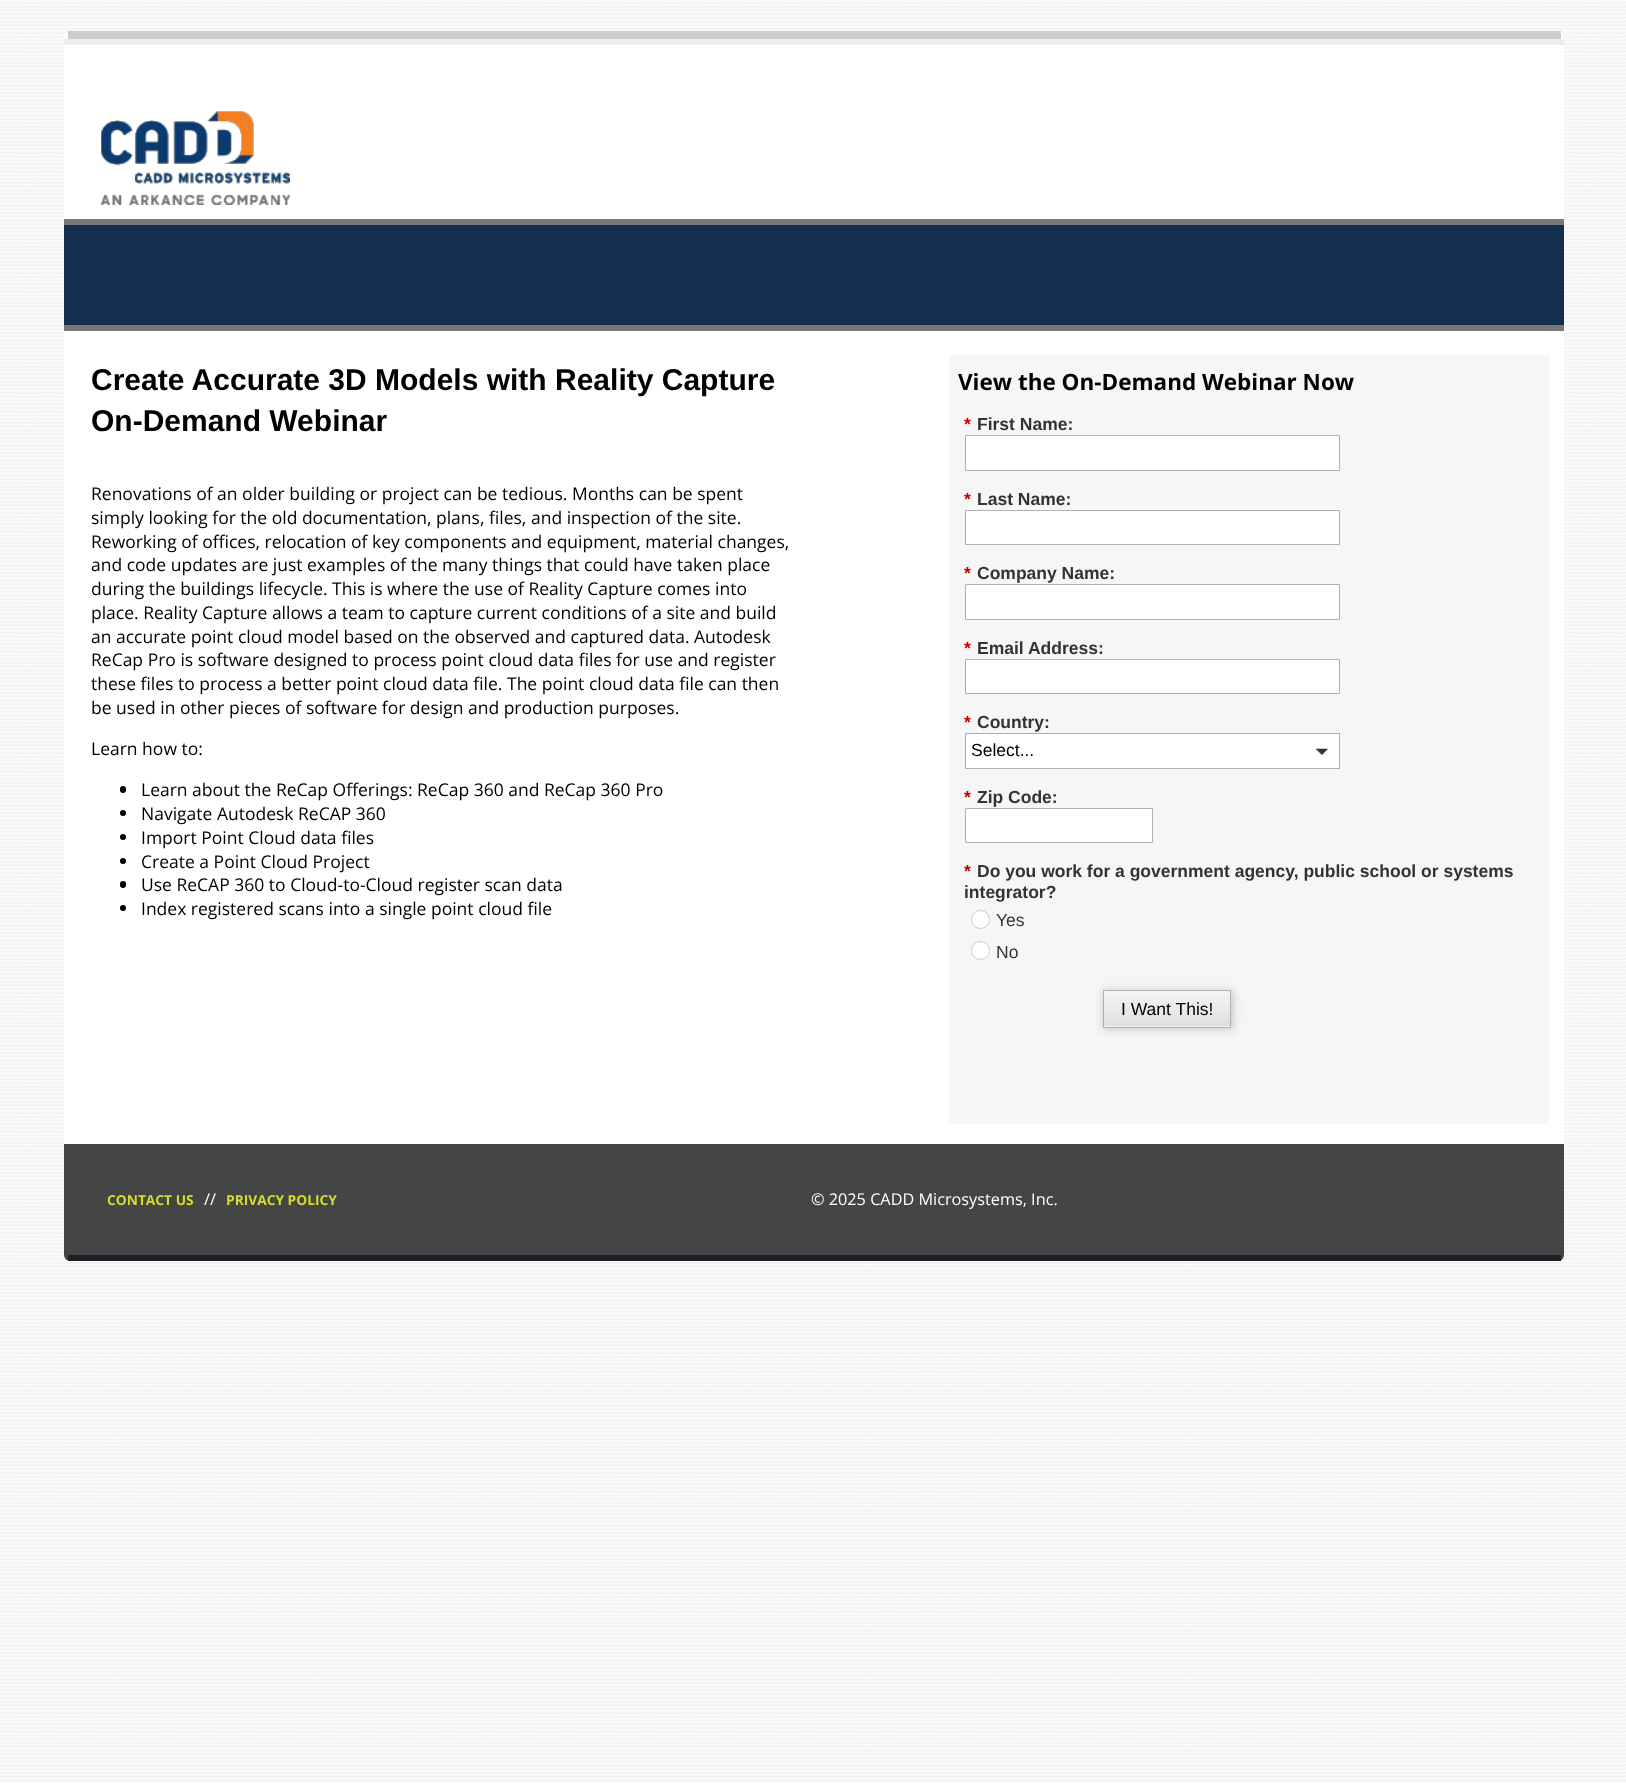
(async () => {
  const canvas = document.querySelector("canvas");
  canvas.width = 1626;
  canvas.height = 1783;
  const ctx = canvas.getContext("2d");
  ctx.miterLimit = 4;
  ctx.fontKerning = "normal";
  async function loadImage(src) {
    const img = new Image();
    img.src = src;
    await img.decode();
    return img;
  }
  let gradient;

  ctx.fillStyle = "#ffffff";
  ctx.fillRect(0, 0, 1626, 1783);
  ctx.drawImage(await loadImage("img/1.png"), 0, 0, 1626, 1783);
  ctx.beginPath();
  ctx.roundRect(64, 31, 1500, 188, [6, 6, 0, 0]);
  ctx.fill();
  ctx.fillStyle = "#cccccc";
  ctx.fillRect(68, 31, 1493, 8);
  ctx.fillStyle = "#ededed";
  ctx.fillRect(64, 39, 1500, 6);
  ctx.drawImage(await loadImage("img/2.png"), 101, 111, 189, 94);
  for (const [x, y, w, h, color] of [
    [64, 225, 1500, 100, "#152e4d"],
    [64, 219, 1500, 6, "#777777"],
    [64, 325, 1500, 6, "#777777"],
    [64, 331, 1500, 813, "#ffffff"],
  ]) {
    ctx.fillStyle = color;
    ctx.fillRect(x, y, w, h);
  }
  ctx.fillStyle = "#000000";
  ctx.beginPath();
  ctx.roundRect(120, 786, 6, 7, 3);
  ctx.fill();
  ctx.beginPath();
  ctx.arc(123, 813, 3, 0, Math.PI * 2);
  ctx.fill();
  ctx.beginPath();
  ctx.arc(123, 837, 3, 0, Math.PI * 2);
  ctx.fill();
  ctx.beginPath();
  ctx.arc(123, 861, 3, 0, Math.PI * 2);
  ctx.fill();
  ctx.beginPath();
  ctx.roundRect(120, 881, 6, 7, 3);
  ctx.fill();
  ctx.beginPath();
  ctx.arc(123, 908, 3, 0, Math.PI * 2);
  ctx.fill();
  ctx.fillStyle = "#f6f6f6";
  ctx.fillRect(949, 355, 600, 769);
  ctx.fillStyle = "#ffffff";
  ctx.beginPath();
  ctx.rect(965.5, 435.5, 374, 35);
  ctx.fill();
  ctx.strokeStyle = "#aeb0b6";
  ctx.stroke();
  ctx.beginPath();
  ctx.rect(965.5, 510.5, 374, 34);
  ctx.fill();
  ctx.stroke();
  ctx.beginPath();
  ctx.rect(965.5, 584.5, 374, 35);
  ctx.fill();
  ctx.stroke();
  ctx.beginPath();
  ctx.rect(965.5, 659.5, 374, 34);
  ctx.fill();
  ctx.stroke();
  ctx.fillRect(966, 734, 373, 34);
  ctx.drawImage(await loadImage("img/3.png"), 1316, 748, 12, 8);
  ctx.strokeRect(965.5, 733.5, 374, 35);
  ctx.beginPath();
  ctx.rect(965.5, 808.5, 187, 34);
  ctx.fill();
  ctx.stroke();
  ctx.beginPath();
  ctx.arc(980.5, 919.5, 9, 0, Math.PI * 2);
  ctx.fill();
  ctx.strokeStyle = "#ccced2";
  ctx.stroke();
  ctx.beginPath();
  ctx.arc(980.5, 950.5, 9, 0, Math.PI * 2);
  ctx.fill();
  ctx.stroke();
  ctx.fillStyle = "#cccccc";
  ctx.filter = "blur(4px)";
  ctx.beginPath();
  ctx.rect(1103, 990, 131, 40);
  ctx.fill();
  ctx.filter = "none";
  ctx.fillStyle = "#f5f5f5";
  ctx.fillRect(1104, 1026, 126, 1);
  gradient = ctx.createLinearGradient(1167, 991, 1167, 1026);
  gradient.addColorStop(0, "#f5f5f5");
  gradient.addColorStop(1, "#dfdfdf");
  ctx.fillStyle = gradient;
  ctx.fillRect(1104, 991, 126, 35);
  ctx.strokeStyle = "#aeb0b6";
  ctx.strokeRect(1103.5, 990.5, 127, 37);
  ctx.fillStyle = "#454545";
  ctx.beginPath();
  ctx.roundRect(64, 1144, 1500, 117, [0, 0, 6, 6]);
  ctx.fill();
  ctx.fillStyle = "#1d2127";
  ctx.fillRect(68, 1255, 1493, 6);
  ctx.font = "bold 30px Liberation Sans";
  ctx.fillStyle = "#000000";
  ctx.fillText("Create Accurate 3D Models with Reality Capture", 91, 390);
  ctx.fillText("On-Demand Webinar", 91, 431);
  ctx.font = "17.5px Open Sans";
  for (const [text, x, y] of [
    ["Renovations of an older building or project can be tedious. Months can be spent", 91, 500],
    ["simply looking for the old documentation, plans, files, and inspection of the site.", 91, 524],
    ["Reworking of offices, relocation of key components and equipment, material changes,", 91, 548],
    ["and code updates are just examples of the many things that could have taken place", 91, 571],
    ["during the buildings lifecycle. This is where the use of Reality Capture comes into", 91, 595],
    ["place. Reality Capture allows a team to capture current conditions of a site and build", 91, 619],
    ["an accurate point cloud model based on the observed and captured data. Autodesk", 91, 643],
    ["ReCap Pro is software designed to process point cloud data files for use and register", 91, 666],
    ["these files to process a better point cloud data file. The point cloud data file can then", 91, 690],
    ["be used in other pieces of software for design and production purposes.", 91, 714],
    ["Learn how to:", 91, 755],
    ["Learn about the ReCap Offerings: ReCap 360 and ReCap 360 Pro", 141, 796],
    ["Navigate Autodesk ReCAP 360", 141, 820],
    ["Import Point Cloud data files", 141, 844],
    ["Create a Point Cloud Project", 141, 868],
    ["Use ReCAP 360 to Cloud-to-Cloud register scan data", 141, 891],
    ["Index registered scans into a single point cloud file", 141, 915],
  ]) {
    ctx.fillText(text, x, y);
  }
  ctx.font = "bold 22.5px Open Sans";
  ctx.fillText("View the On-Demand Webinar Now", 958, 390);
  ctx.font = "bold 17.5px Liberation Sans";
  ctx.fillStyle = "#bf0000";
  ctx.fillText("*", 964, 430);
  ctx.fillStyle = "#333333";
  ctx.fillText("First Name:", 977, 430);
  ctx.fillStyle = "#bf0000";
  ctx.fillText("*", 964, 505);
  ctx.fillStyle = "#333333";
  ctx.fillText("Last Name:", 977, 505);
  ctx.fillStyle = "#bf0000";
  ctx.fillText("*", 964, 579);
  ctx.fillStyle = "#333333";
  ctx.fillText("Company Name:", 977, 579);
  ctx.fillStyle = "#bf0000";
  ctx.fillText("*", 964, 654);
  ctx.fillStyle = "#333333";
  ctx.fillText("Email Address:", 977, 654);
  ctx.fillStyle = "#bf0000";
  ctx.fillText("*", 964, 728);
  ctx.fillStyle = "#333333";
  ctx.fillText("Country:", 977, 728);
  ctx.font = "17.5px Liberation Sans";
  ctx.fillStyle = "#000000";
  ctx.fillText("Select...", 971, 756);
  ctx.font = "bold 17.5px Liberation Sans";
  ctx.fillStyle = "#bf0000";
  ctx.fillText("*", 964, 803);
  ctx.fillStyle = "#333333";
  ctx.fillText("Zip Code:", 977, 803);
  ctx.fillStyle = "#bf0000";
  ctx.fillText("*", 964, 877);
  ctx.fillStyle = "#333333";
  ctx.fillText("Do you work for a government agency, public school or systems", 977, 877);
  ctx.fillText("integrator?", 964, 898);
  ctx.font = "17.5px Liberation Sans";
  ctx.fillText("Yes", 996, 926);
  ctx.fillText("No", 996, 958);
  ctx.fillStyle = "#000000";
  ctx.fillText("I Want This!", 1121, 1015);
  ctx.font = "bold 13.75px Open Sans";
  ctx.fillStyle = "#d3dd2d";
  ctx.fillText("CONTACT US", 107, 1205);
  ctx.font = "16.25px Open Sans";
  ctx.fillStyle = "#ffffff";
  ctx.fillText("//", 204, 1205);
  ctx.font = "bold 13.75px Open Sans";
  ctx.fillStyle = "#d3dd2d";
  ctx.fillText("PRIVACY POLICY", 226, 1205);
  ctx.font = "16.25px Open Sans";
  ctx.fillStyle = "#ffffff";
  ctx.fillText("© 2025 CADD Microsystems, Inc.", 811, 1205);
})();
